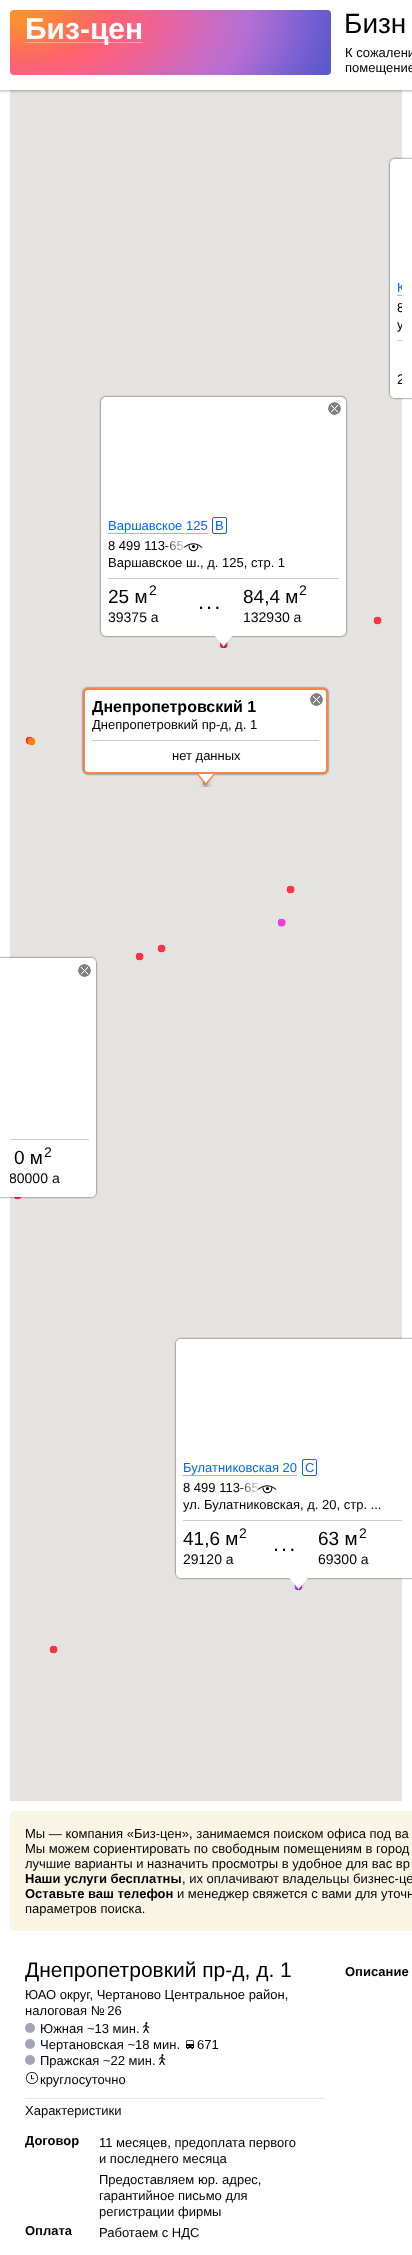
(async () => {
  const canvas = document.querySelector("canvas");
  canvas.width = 412;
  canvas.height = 2255;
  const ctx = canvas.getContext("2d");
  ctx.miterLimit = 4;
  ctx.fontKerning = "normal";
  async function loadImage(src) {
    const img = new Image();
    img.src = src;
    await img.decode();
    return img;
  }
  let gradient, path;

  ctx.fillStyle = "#ffffff";
  ctx.fillRect(0, 0, 412, 2255);
  ctx.fillStyle = "#e5e3df";
  ctx.fillRect(10, 90, 392, 1711);
  ctx.fillStyle = "rgba(0, 0, 0, 0.3)";
  ctx.filter = "blur(1.5px)";
  ctx.beginPath();
  ctx.rect(-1, -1, 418, 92);
  ctx.fill();
  ctx.filter = "none";
  ctx.fillStyle = "#ffffff";
  ctx.fillRect(0, 0, 412, 90);
  ctx.drawImage(await loadImage("img/1.png"), 10, 10, 321, 65);
  ctx.save();
  path = new Path2D("M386 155H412V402H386ZM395 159H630C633 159 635 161 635 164V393C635 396 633 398 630 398H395C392 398 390 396 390 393V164C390 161 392 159 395 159Z");
  ctx.clip(path, "evenodd");
  ctx.fillStyle = "rgba(0, 0, 0, 0.7)";
  ctx.filter = "blur(1px)";
  ctx.beginPath();
  ctx.roundRect(390, 159, 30, 239, 5);
  ctx.fill();
  ctx.filter = "none";
  ctx.restore();
  ctx.beginPath();
  ctx.roundRect(390, 159, 12, 239, [5, 0, 0, 5]);
  ctx.fill();
  ctx.fillStyle = "#9eb5fa";
  ctx.fillRect(397, 295, 5, 1);
  ctx.fillStyle = "#cccccc";
  ctx.fillRect(397, 340, 5, 1);
  ctx.drawImage(await loadImage("img/5.png"), 219, 616, 163, 28);
  ctx.fillStyle = "rgba(0, 0, 0, 0.7)";
  ctx.filter = "blur(1px)";
  ctx.beginPath();
  ctx.roundRect(101, 397, 245, 239, 5);
  ctx.fill();
  ctx.filter = "none";
  ctx.fillStyle = "#ffffff";
  ctx.beginPath();
  ctx.roundRect(101, 397, 245, 239, 5);
  ctx.fill();
  ctx.drawImage(await loadImage("img/2.png"), 328, 402, 13, 13);
  ctx.fillStyle = "#9eb5fa";
  ctx.fillRect(108, 533, 100, 1);
  ctx.beginPath();
  ctx.roundRect(212.5, 517.5, 14, 16, 1.5);
  ctx.strokeStyle = "#0068fe";
  ctx.stroke();
  ctx.fillStyle = "#cccccc";
  ctx.fillRect(108, 578, 231, 1);
  ctx.drawImage(await loadImage("img/7.png"), 203, 644, 92, 250);
  ctx.save();
  ctx.beginPath();
  ctx.rect(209, 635, 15, 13);
  ctx.clip();
  ctx.fillStyle = "rgba(0, 0, 0, 0.6)";
  ctx.filter = "blur(3px)";
  ctx.beginPath();
  ctx.rect(224, 636, 10, 24);
  ctx.fill();
  ctx.filter = "none";
  ctx.restore();
  ctx.save();
  ctx.beginPath();
  ctx.rect(209, 635, 15, 13);
  ctx.clip();
  ctx.fillStyle = "#ffffff";
  path = new Path2D("M213.5 634.5H223.5L243.5 658.5H233.5Z");
  ctx.fill(path);
  ctx.restore();
  ctx.save();
  ctx.beginPath();
  ctx.rect(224, 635, 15, 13);
  ctx.clip();
  ctx.fillStyle = "rgba(0, 0, 0, 0.6)";
  ctx.filter = "blur(3px)";
  ctx.beginPath();
  ctx.rect(214, 636, 10, 24);
  ctx.fill();
  ctx.filter = "none";
  ctx.restore();
  ctx.save();
  ctx.beginPath();
  ctx.rect(224, 635, 15, 13);
  ctx.clip();
  ctx.fillStyle = "#ffffff";
  path = new Path2D("M223.5 634.5H233.5L213.5 658.5H203.5Z");
  ctx.fill(path);
  ctx.restore();
  ctx.fillStyle = "rgba(0, 0, 0, 0.7)";
  ctx.filter = "blur(1px)";
  ctx.beginPath();
  ctx.roundRect(83, 688, 245, 86, 5);
  ctx.fill();
  ctx.filter = "none";
  ctx.fillStyle = "#ffffff";
  ctx.beginPath();
  ctx.roundRect(84, 689, 243, 84, 4);
  ctx.fill();
  ctx.strokeStyle = "#f9844f";
  ctx.lineWidth = 2;
  ctx.stroke();
  ctx.fillStyle = "#cccccc";
  ctx.fillRect(92, 740, 227, 1);
  ctx.drawImage(await loadImage("img/2.png"), 310, 693, 13, 13);
  ctx.save();
  ctx.beginPath();
  ctx.rect(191, 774, 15, 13);
  ctx.clip();
  ctx.fillStyle = "rgba(0, 0, 0, 0.6)";
  ctx.filter = "blur(3px)";
  ctx.beginPath();
  ctx.rect(206, 775, 10, 24);
  ctx.fill();
  ctx.filter = "none";
  ctx.restore();
  ctx.save();
  ctx.beginPath();
  ctx.rect(191, 774, 15, 13);
  ctx.clip();
  ctx.fillStyle = "#ffffff";
  path = new Path2D("M196 773.5H206L226 797.5H216Z");
  ctx.fill(path);
  ctx.fillStyle = "#f9844f";
  path = new Path2D("M196 773.5H198L218 797.5H216Z");
  ctx.fill(path);
  ctx.restore();
  ctx.save();
  ctx.beginPath();
  ctx.rect(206, 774, 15, 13);
  ctx.clip();
  ctx.fillStyle = "rgba(0, 0, 0, 0.6)";
  ctx.filter = "blur(3px)";
  ctx.beginPath();
  ctx.rect(196, 775, 10, 24);
  ctx.fill();
  ctx.filter = "none";
  ctx.restore();
  ctx.save();
  ctx.beginPath();
  ctx.rect(206, 774, 15, 13);
  ctx.clip();
  ctx.fillStyle = "#ffffff";
  path = new Path2D("M206 773.5H216L195.5 797.5H185.5Z");
  ctx.fill(path);
  ctx.fillStyle = "#f9844f";
  path = new Path2D("M214 773.5H216L195.5 797.5H193.5Z");
  ctx.fill(path);
  ctx.restore();
  ctx.drawImage(await loadImage("img/10.png"), 14, 1197, 8, 3);
  ctx.save();
  path = new Path2D("M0 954H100V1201H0ZM-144 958H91C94 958 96 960 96 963V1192C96 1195 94 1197 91 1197H-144C-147 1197-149 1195-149 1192V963C-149 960-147 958-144 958Z");
  ctx.clip(path, "evenodd");
  ctx.fillStyle = "rgba(0, 0, 0, 0.7)";
  ctx.filter = "blur(1px)";
  ctx.beginPath();
  ctx.roundRect(-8, 958, 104, 239, 5);
  ctx.fill();
  ctx.filter = "none";
  ctx.restore();
  ctx.fillStyle = "#ffffff";
  ctx.beginPath();
  ctx.roundRect(10, 958, 86, 239, [0, 5, 5, 0]);
  ctx.fill();
  ctx.drawImage(await loadImage("img/2.png"), 78, 964, 13, 13);
  ctx.fillStyle = "#cccccc";
  ctx.fillRect(10, 1139, 79, 1);
  ctx.save();
  path = new Path2D("M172 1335H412V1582H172ZM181 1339H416C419 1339 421 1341 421 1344V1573C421 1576 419 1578 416 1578H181C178 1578 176 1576 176 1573V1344C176 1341 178 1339 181 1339Z");
  ctx.clip(path, "evenodd");
  ctx.fillStyle = "rgba(0, 0, 0, 0.7)";
  ctx.filter = "blur(1px)";
  ctx.beginPath();
  ctx.roundRect(176, 1339, 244, 239, 5);
  ctx.fill();
  ctx.filter = "none";
  ctx.restore();
  ctx.fillStyle = "#ffffff";
  ctx.beginPath();
  ctx.roundRect(176, 1339, 226, 239, [5, 0, 0, 5]);
  ctx.fill();
  ctx.fillStyle = "#9eb5fa";
  ctx.fillRect(183, 1475, 114, 1);
  ctx.beginPath();
  ctx.roundRect(302.5, 1459.5, 14, 16, 1.5);
  ctx.strokeStyle = "#0068fe";
  ctx.lineWidth = 1;
  ctx.stroke();
  ctx.fillStyle = "#cccccc";
  ctx.fillRect(183, 1520, 219, 1);
  ctx.drawImage(await loadImage("img/11.png"), 294, 1584, 9, 7);
  ctx.save();
  ctx.beginPath();
  ctx.rect(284, 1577, 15, 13);
  ctx.clip();
  ctx.fillStyle = "rgba(0, 0, 0, 0.6)";
  ctx.filter = "blur(3px)";
  ctx.beginPath();
  ctx.rect(299, 1578, 10, 24);
  ctx.fill();
  ctx.filter = "none";
  ctx.restore();
  ctx.save();
  ctx.beginPath();
  ctx.rect(284, 1577, 15, 13);
  ctx.clip();
  ctx.fillStyle = "#ffffff";
  path = new Path2D("M288.5 1577H298.5L318.5 1601H308.5Z");
  ctx.fill(path);
  ctx.restore();
  ctx.save();
  ctx.beginPath();
  ctx.rect(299, 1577, 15, 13);
  ctx.clip();
  ctx.fillStyle = "rgba(0, 0, 0, 0.6)";
  ctx.filter = "blur(3px)";
  ctx.beginPath();
  ctx.rect(288, 1578, 10, 24);
  ctx.fill();
  ctx.filter = "none";
  ctx.restore();
  ctx.save();
  ctx.beginPath();
  ctx.rect(299, 1577, 15, 13);
  ctx.clip();
  ctx.fillStyle = "#ffffff";
  path = new Path2D("M298.5 1577H308.5L288.5 1601H278.5Z");
  ctx.fill(path);
  ctx.restore();
  ctx.drawImage(await loadImage("img/6.png"), 25, 736, 11, 10);
  ctx.drawImage(await loadImage("img/8.png"), 277, 918, 9, 9);
  ctx.drawImage(await loadImage("img/9.png"), 135, 944, 31, 17);
  ctx.drawImage(await loadImage("img/12.png"), 49, 1645, 9, 9);
  ctx.fillStyle = "#f9f5e4";
  ctx.beginPath();
  ctx.roundRect(10, 1811, 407, 120, 5);
  ctx.fill();
  ctx.fillStyle = "#a1a6b5";
  ctx.beginPath();
  ctx.arc(30, 2028, 5, 0, Math.PI * 2);
  ctx.fill();
  ctx.drawImage(await loadImage("img/13.png"), 143, 2022, 6, 11);
  ctx.beginPath();
  ctx.arc(30, 2044, 5, 0, Math.PI * 2);
  ctx.fill();
  ctx.drawImage(await loadImage("img/14.png"), 186, 2040, 8, 9);
  ctx.beginPath();
  ctx.arc(30, 2060, 5, 0, Math.PI * 2);
  ctx.fill();
  ctx.drawImage(await loadImage("img/13.png"), 159, 2054, 6, 11);
  ctx.drawImage(await loadImage("img/15.png"), 26, 2072, 12, 12);
  ctx.fillStyle = "#e5e5e5";
  ctx.fillRect(25, 2098, 300, 1);
  ctx.font = "bold 30px Liberation Sans";
  ctx.fillStyle = "#ffffff";
  ctx.fillText("Биз-цен", 25, 39);
  ctx.fillStyle = "rgba(255, 255, 255, 0.4)";
  ctx.fillRect(25, 42, 118, 1);
  ctx.font = "28px Liberation Sans";
  ctx.fillStyle = "#000000";
  ctx.fillText("Бизн", 344, 33);
  ctx.font = "13px Liberation Sans";
  ctx.fillText("К сожалени", 345, 57);
  ctx.fillText("помещение", 345, 72);
  ctx.save();
  ctx.beginPath();
  ctx.rect(10, 0, 392, 1801);
  ctx.clip();
  ctx.fillStyle = "#0068fe";
  ctx.fillText("К", 397, 292);
  ctx.fillStyle = "#000000";
  ctx.fillText("8", 397, 312);
  ctx.fillText("у", 397, 329);
  ctx.font = "14px Liberation Sans";
  ctx.fillText("2", 397, 384);
  ctx.restore();
  ctx.fillStyle = "#0068fe";
  ctx.fillText("Варшавское 125", 108, 530);
  ctx.fillText("B", 215, 530);
  ctx.fillStyle = "#000000";
  ctx.fillText("8 499 113-65", 108, 550);
  gradient = ctx.createLinearGradient(153, 546, 203, 546);
  gradient.addColorStop(0.2, "rgba(255, 255, 255, 0)");
  gradient.addColorStop(0.7, "#ffffff");
  ctx.fillStyle = gradient;
  ctx.fillRect(164, 540, 20, 11);
  ctx.drawImage(await loadImage("img/3.png"), 183, 543, 20, 9);
  ctx.fillStyle = "#000000";
  ctx.fillText("Варшавское ш., д. 125, стр. 1", 108, 567);
  ctx.font = "19px Liberation Sans";
  ctx.fillText("25 м", 108, 603);
  ctx.font = "14px Liberation Sans";
  ctx.fillText("2", 149, 595);
  ctx.fillText("39375 a", 108, 622);
  ctx.letterSpacing = "2px";
  ctx.font = "22px Liberation Sans";
  ctx.fillText("...", 198, 609);
  ctx.letterSpacing = "0px";
  ctx.font = "19px Liberation Sans";
  ctx.fillText("84,4 м", 243, 603);
  ctx.font = "14px Liberation Sans";
  ctx.fillText("2", 299, 595);
  ctx.fillText("132930 a", 243, 622);
  ctx.font = "bold 16px Liberation Sans";
  ctx.fillText("Днепропетровский 1", 92, 712);
  ctx.font = "13px Liberation Sans";
  ctx.fillText("Днепропетровкий пр-д, д. 1", 92, 729);
  ctx.fillText("нет данных", 172, 760);
  ctx.font = "19px Liberation Sans";
  ctx.fillText("0 м", 14, 1164);
  ctx.font = "14px Liberation Sans";
  ctx.fillText("2", 44, 1157);
  ctx.save();
  ctx.beginPath();
  ctx.rect(10, 0, 392, 1801);
  ctx.clip();
  ctx.fillText("80000", 9, 1183);
  ctx.restore();
  ctx.fillText("a", 52, 1183);
  ctx.font = "13px Liberation Sans";
  ctx.fillStyle = "#0068fe";
  ctx.fillText("Булатниковская 20", 183, 1472);
  ctx.fillText("C", 305, 1472);
  ctx.fillStyle = "#000000";
  ctx.fillText("8 499 113-65", 183, 1492);
  gradient = ctx.createLinearGradient(227, 1488, 277, 1488);
  gradient.addColorStop(0.2, "rgba(255, 255, 255, 0)");
  gradient.addColorStop(0.7, "#ffffff");
  ctx.fillStyle = gradient;
  ctx.fillRect(238, 1482, 21, 11);
  ctx.drawImage(await loadImage("img/4.png"), 257, 1485, 20, 9);
  ctx.fillStyle = "#000000";
  ctx.fillText("ул. Булатниковская, д. 20, стр. ...", 183, 1509);
  ctx.font = "19px Liberation Sans";
  ctx.fillText("41,6 м", 183, 1545);
  ctx.font = "14px Liberation Sans";
  ctx.fillText("2", 239, 1538);
  ctx.fillText("29120 a", 183, 1564);
  ctx.letterSpacing = "2px";
  ctx.font = "22px Liberation Sans";
  ctx.fillText("...", 273, 1551);
  ctx.letterSpacing = "0px";
  ctx.font = "19px Liberation Sans";
  ctx.fillText("63 м", 318, 1545);
  ctx.font = "14px Liberation Sans";
  ctx.fillText("2", 359, 1538);
  ctx.fillText("69300 a", 318, 1564);
  ctx.font = "13px Liberation Sans";
  for (const [text, x, y] of [
    ["Мы — компания «Биз-цен», занимаемся поиском офиса под ва", 25, 1838],
    ["Мы можем сориентировать по свободным помещениям в город", 25, 1853],
    ["лучшие варианты и назначить просмотры в удобное для вас вр", 25, 1868],
  ]) {
    ctx.fillText(text, x, y);
  }
  ctx.font = "bold 13px Liberation Sans";
  ctx.fillText("Наши услуги бесплатны", 25, 1883);
  ctx.font = "13px Liberation Sans";
  ctx.fillText(", их оплачивают владельцы бизнес-це", 182, 1883);
  ctx.font = "bold 13px Liberation Sans";
  ctx.fillText("Оставьте ваш телефон", 25, 1898);
  ctx.font = "13px Liberation Sans";
  ctx.fillText("и менеджер свяжется с вами для уточн", 177, 1898);
  ctx.fillText("параметров поиска.", 25, 1913);
  ctx.font = "21px Liberation Sans";
  ctx.fillText("Днепропетровкий пр-д, д. 1", 25, 1977);
  ctx.font = "13px Liberation Sans";
  for (const [text, x, y] of [
    ["ЮАО округ, Чертаново Центральное район,", 25, 1999],
    ["налоговая № 26", 25, 2015],
    ["Южная ~13 мин.", 40, 2033],
    ["Чертановская ~18 мин.", 40, 2049],
    ["671", 197, 2049],
    ["Пражская ~22 мин.", 40, 2065],
    ["круглосуточно", 40, 2084],
    ["Характеристики", 25, 2115],
  ]) {
    ctx.fillText(text, x, y);
  }
  ctx.font = "bold 13px Liberation Sans";
  ctx.fillText("Договор", 25, 2145);
  ctx.font = "13px Liberation Sans";
  for (const [text, x, y] of [
    ["11 месяцев, предоплата первого", 99, 2147],
    ["и последнего месяца", 99, 2163],
    ["Предоставляем юр. адрес,", 99, 2184],
    ["гарантийное письмо для", 99, 2200],
    ["регистрации фирмы", 99, 2216],
  ]) {
    ctx.fillText(text, x, y);
  }
  ctx.font = "bold 13px Liberation Sans";
  ctx.fillText("Оплата", 25, 2235);
  ctx.font = "13px Liberation Sans";
  ctx.fillText("Работаем с НДС", 99, 2237);
  ctx.font = "bold 13px Liberation Sans";
  ctx.fillText("Описание", 345, 1976);
})();
